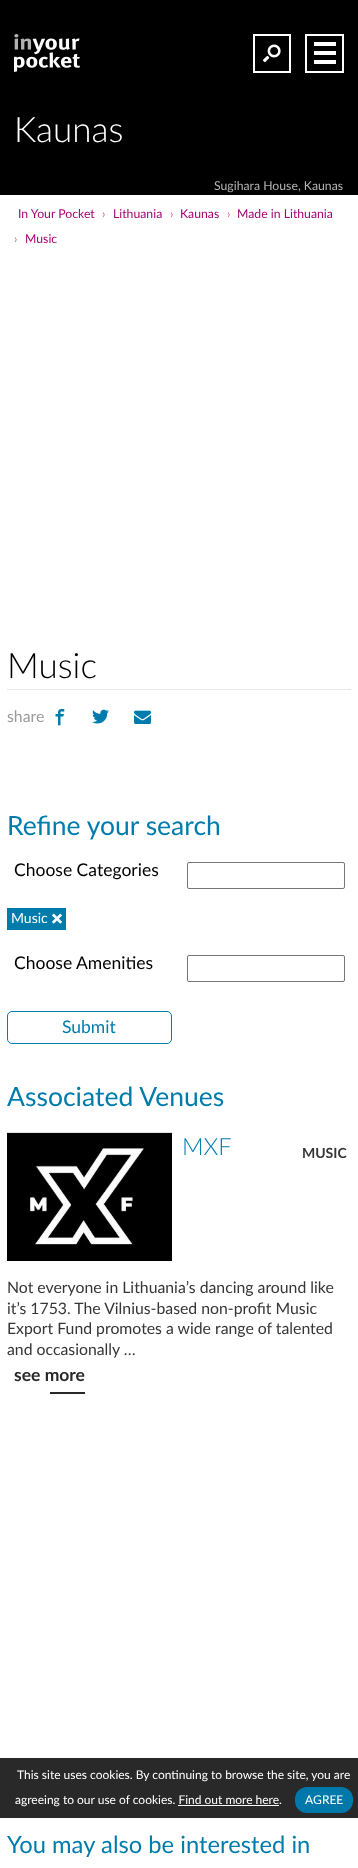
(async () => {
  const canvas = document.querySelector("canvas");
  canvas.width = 358;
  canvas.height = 1868;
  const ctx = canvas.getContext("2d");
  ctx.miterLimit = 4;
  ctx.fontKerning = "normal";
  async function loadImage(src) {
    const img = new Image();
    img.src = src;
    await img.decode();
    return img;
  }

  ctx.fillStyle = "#ffffff";
  ctx.fillRect(0, 0, 358, 1868);
  ctx.fillStyle = "#000000";
  ctx.fillRect(0, 0, 358, 195);
  ctx.drawImage(await loadImage("img/1.png"), 14, 34, 66, 38);
  ctx.strokeStyle = "#ffffff";
  ctx.lineWidth = 2;
  ctx.strokeRect(254, 35, 36, 37);
  ctx.drawImage(await loadImage("img/2.png"), 263, 44, 18, 19);
  ctx.drawImage(await loadImage("img/3.png"), 314, 42, 22, 22);
  ctx.strokeRect(306, 35, 37, 37);
  ctx.fillStyle = "#e7e7e7";
  ctx.fillRect(7, 689, 344, 1);
  ctx.drawImage(await loadImage("img/4.png"), 55, 709, 10, 17);
  ctx.drawImage(await loadImage("img/5.png"), 92, 709, 17, 15);
  ctx.drawImage(await loadImage("img/6.png"), 134, 710, 17, 14);
  ctx.beginPath();
  ctx.roundRect(187.5, 862.5, 157, 26, 1.5);
  ctx.strokeStyle = "#767676";
  ctx.lineWidth = 1;
  ctx.stroke();
  ctx.fillStyle = "#007cac";
  ctx.fillRect(7, 908, 59, 22);
  ctx.drawImage(await loadImage("img/7.png"), 52, 913, 10, 11);
  ctx.beginPath();
  ctx.roundRect(187.5, 955.5, 157, 26, 1.5);
  ctx.stroke();
  ctx.beginPath();
  ctx.roundRect(7.5, 1011.5, 164, 32, 4.5);
  ctx.strokeStyle = "#007cac";
  ctx.stroke();
  ctx.lineWidth = 2;
  ctx.strokeRect(8, 1134, 163, 126);
  ctx.drawImage(await loadImage("img/8.png"), 7, 1132, 165, 129);
  ctx.fillStyle = "#292929";
  ctx.fillRect(50, 1392, 35, 2);
  ctx.fillRect(0, 1758, 358, 60);
  ctx.fillStyle = "#0079aa";
  ctx.beginPath();
  ctx.roundRect(295, 1787, 58, 26, 12);
  ctx.fill();
  ctx.fillStyle = "#ffffff";
  ctx.fillRect(178, 1805, 101, 1);
  ctx.font = "300 35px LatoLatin";
  ctx.fillText("Kaunas", 14, 142);
  ctx.font = "12.25px LatoLatin";
  ctx.fillStyle = "#b3b3b3";
  ctx.fillText("Sugihara House, Kaunas", 214, 190);
  ctx.fillStyle = "#a50575";
  ctx.fillText("In Your Pocket", 18, 218);
  ctx.fillStyle = "#c969ac";
  ctx.fillText("›", 102, 218);
  ctx.fillStyle = "#a50575";
  ctx.fillText("Lithuania", 113, 218);
  ctx.fillStyle = "#c969ac";
  ctx.fillText("›", 170, 218);
  ctx.fillStyle = "#a50575";
  ctx.fillText("Kaunas", 180, 218);
  ctx.fillStyle = "#c969ac";
  ctx.fillText("›", 227, 218);
  ctx.fillStyle = "#a50575";
  ctx.fillText("Made in Lithuania", 237, 218);
  ctx.fillStyle = "#c969ac";
  ctx.fillText("›", 14, 243);
  ctx.fillStyle = "#a50575";
  ctx.fillText("Music", 25, 243);
  ctx.font = "300 35px LatoLatin";
  ctx.fillStyle = "#000000";
  ctx.fillText("Music", 7, 678);
  ctx.font = "15.8px LatoLatin";
  ctx.fillStyle = "#9b9b9b";
  ctx.fillText("share", 7, 722);
  ctx.font = "26.5px LatoLatin";
  ctx.fillStyle = "#007cac";
  ctx.fillText("Refine your search", 7, 835);
  ctx.font = "17.5px LatoLatin";
  ctx.fillStyle = "#000000";
  ctx.fillText("Choose Categories", 14, 876);
  ctx.font = "14px LatoLatin";
  ctx.fillStyle = "#ffffff";
  ctx.fillText("Music", 11, 923);
  ctx.font = "17.5px LatoLatin";
  ctx.fillStyle = "#000000";
  ctx.fillText("Choose Amenities", 14, 969);
  ctx.fillStyle = "#007cac";
  ctx.fillText("Submit", 62, 1033);
  ctx.font = "26.5px LatoLatin";
  ctx.fillText("Associated Venues", 7, 1106);
  ctx.font = "300 23.75px LatoLatin";
  ctx.fillText("MXF", 182, 1155);
  ctx.font = "bold 14px LatoLatin";
  ctx.fillStyle = "#363636";
  ctx.fillText("MUSIC", 302, 1158);
  ctx.font = "15.8px LatoLatin";
  for (const [text, x, y] of [
    ["Not everyone in Lithuania’s dancing around like", 7, 1293],
    ["it’s 1753. The Vilnius-based non-profit Music", 7, 1314],
    ["Export Fund promotes a wide range of talented", 7, 1334],
    ["and occasionally …", 7, 1355],
  ]) {
    ctx.fillText(text, x, y);
  }
  ctx.font = "bold 17.5px LatoLatin";
  ctx.fillStyle = "#292929";
  ctx.fillText("see more", 14, 1381);
  ctx.font = "23.75px LatoLatin";
  ctx.fillStyle = "#007cac";
  ctx.fillText("You may also be interested in", 7, 1853);
  ctx.font = "12px LatoLatin";
  ctx.fillStyle = "#ffffff";
  for (const [text, x, y] of [
    ["This site uses cookies. By continuing to browse the site, you are", 17, 1779],
    ["agreeing to our use of cookies. Find out more here.", 15, 1804],
    ["AGREE", 305, 1804],
  ]) {
    ctx.fillText(text, x, y);
  }
})();
